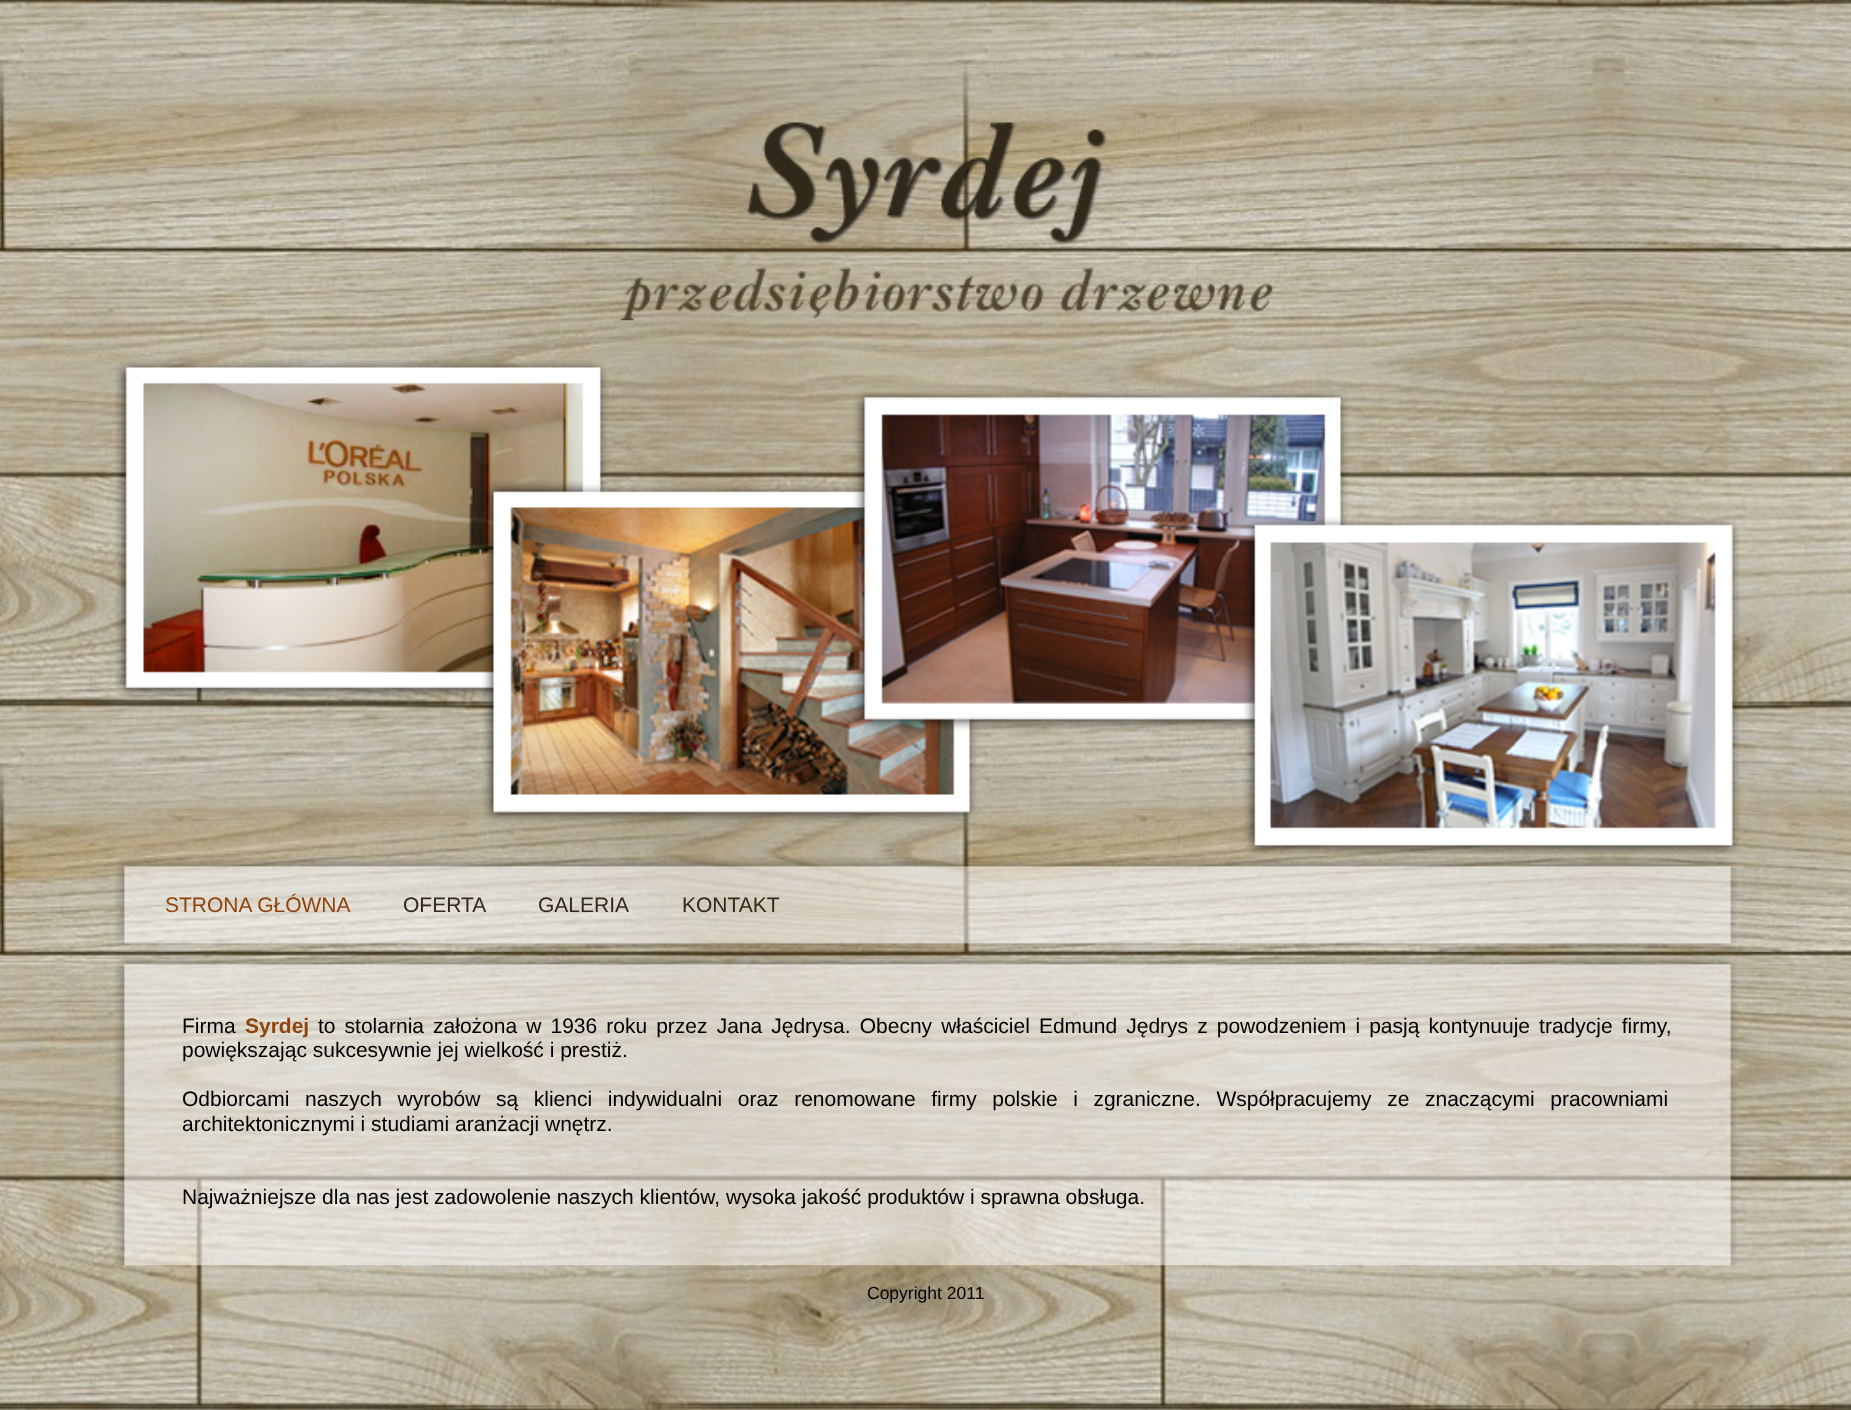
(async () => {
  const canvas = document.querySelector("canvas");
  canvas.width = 1851;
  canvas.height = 1410;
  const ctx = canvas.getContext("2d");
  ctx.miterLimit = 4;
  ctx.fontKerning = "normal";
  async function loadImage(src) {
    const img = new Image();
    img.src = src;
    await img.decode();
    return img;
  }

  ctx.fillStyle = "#ffffff";
  ctx.fillRect(0, 0, 1851, 1410);
  ctx.drawImage(await loadImage("img/1.png"), 0, 0, 1851, 1410);
  ctx.drawImage(await loadImage("img/2.png"), 619, 122, 654, 199);
  ctx.drawImage(await loadImage("img/3.png"), 115, 360, 1625, 494);
  ctx.drawImage(await loadImage("img/4.png"), 115, 857, 1622, 92);
  ctx.drawImage(await loadImage("img/5.png"), 115, 955, 1622, 59);
  ctx.drawImage(await loadImage("img/6.png"), 114, 1013, 1623, 197);
  ctx.drawImage(await loadImage("img/7.png"), 114, 1209, 1623, 57);
  ctx.font = "21px Liberation Sans";
  ctx.fillStyle = "#90430d";
  ctx.fillText("STRONA GŁÓWNA", 165, 912);
  ctx.fillStyle = "#31291c";
  for (const [text, x, y] of [
    ["OFERTA", 403, 912],
    ["GALERIA", 538, 912],
    ["KONTAKT", 682, 912],
  ]) {
    ctx.fillText(text, x, y);
  }
  ctx.fillStyle = "#000000";
  ctx.fillText("Firma", 182, 1033);
  ctx.font = "bold 21px Liberation Sans";
  ctx.fillStyle = "#90430d";
  ctx.fillText("Syrdej", 245, 1033);
  ctx.wordSpacing = "3.25px";
  ctx.font = "21px Liberation Sans";
  ctx.fillStyle = "#000000";
  ctx.fillText("to stolarnia założona w 1936 roku przez Jana Jędrysa. Obecny właściciel Edmund Jędrys z powodzeniem i pasją kontynuuje tradycje firmy,", 318, 1033);
  ctx.wordSpacing = "0px";
  ctx.fillText("powiększając sukcesywnie jej wielkość i prestiż.", 182, 1057);
  ctx.wordSpacing = "9.75px";
  ctx.fillText("Odbiorcami naszych wyrobów są klienci indywidualni oraz renomowane firmy polskie i zgraniczne. Współpracujemy ze znaczącymi pracowniami", 182, 1106);
  ctx.wordSpacing = "0px";
  ctx.fillText("architektonicznymi i studiami aranżacji wnętrz.", 182, 1131);
  ctx.fillText("Najważniejsze dla nas jest zadowolenie naszych klientów, wysoka jakość produktów i sprawna obsługa.", 182, 1204);
  ctx.font = "17.5px Liberation Sans";
  ctx.fillText("Copyright 2011", 867, 1299);
})();
